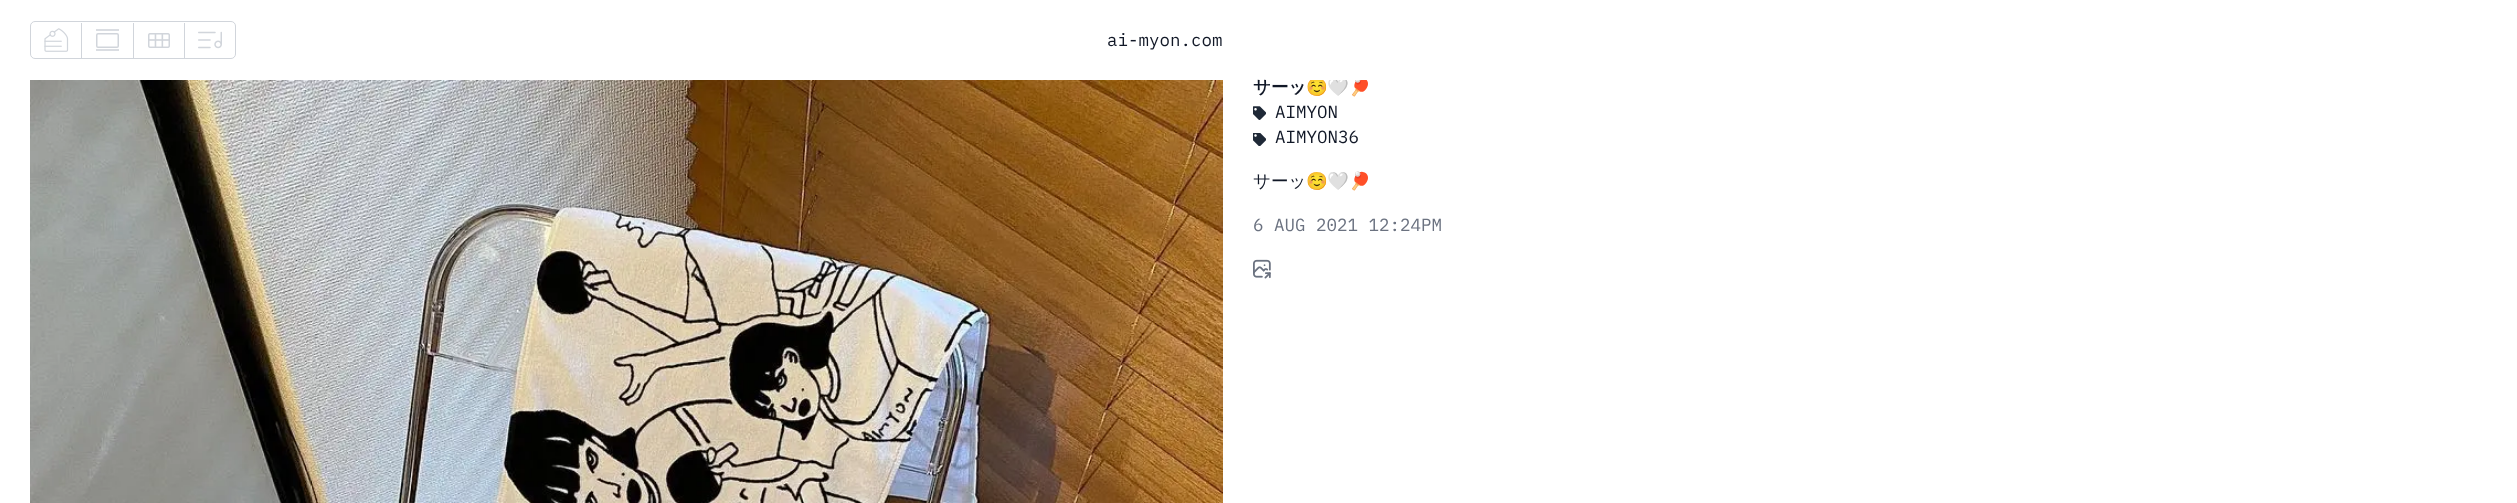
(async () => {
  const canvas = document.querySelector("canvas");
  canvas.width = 2517;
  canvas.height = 503;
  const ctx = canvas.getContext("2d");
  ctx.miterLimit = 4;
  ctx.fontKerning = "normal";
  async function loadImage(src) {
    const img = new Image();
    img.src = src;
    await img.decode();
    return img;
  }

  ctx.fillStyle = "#ffffff";
  ctx.fillRect(0, 0, 2517, 503);
  ctx.beginPath();
  ctx.roundRect(30.5, 21.5, 205, 37, 4.5);
  ctx.strokeStyle = "#d1d5db";
  ctx.stroke();
  ctx.drawImage(await loadImage("img/1.png"), 44, 28, 25, 24);
  ctx.fillStyle = "#d1d5db";
  ctx.fillRect(81, 23, 1, 35);
  ctx.beginPath();
  ctx.roundRect(96.75, 33.75, 21.5, 13.5, 1.25);
  ctx.lineWidth = 1.5;
  ctx.stroke();
  for (const [x, y, w, h, color] of [
    [96, 29, 23, 2, "#dadde2"],
    [96, 49, 23, 2, "#dadde2"],
    [133, 23, 1, 35, "#d1d5db"],
  ]) {
    ctx.fillStyle = color;
    ctx.fillRect(x, y, w, h);
  }
  ctx.drawImage(await loadImage("img/2.png"), 148, 33, 22, 15);
  ctx.fillRect(184, 23, 1, 35);
  ctx.drawImage(await loadImage("img/3.png"), 198, 31, 24, 18);
  ctx.drawImage(await loadImage("img/4.png"), 30, 80, 1193, 423);
  ctx.drawImage(await loadImage("img/5.png"), 1253, 106, 13, 14);
  ctx.drawImage(await loadImage("img/6.png"), 1253, 133, 13, 13);
  ctx.drawImage(await loadImage("img/7.png"), 1253, 259, 18, 20);
  ctx.font = "17.5px IBM Plex Mono";
  ctx.fillStyle = "#111827";
  ctx.fillText("ai-myon.com", 1107, 46);
  ctx.font = "bold 17.5px WenQuanYi Zen Hei";
  ctx.fillText("サーッ", 1253, 93);
  ctx.font = "bold 17.5px Noto Color Emoji";
  ctx.fillText("☺️🤍🏓", 1306, 93);
  ctx.fillStyle = "#ffffff";
  ctx.fillRect(1305, 77, 66, 3);
  ctx.font = "17.5px IBM Plex Mono";
  ctx.fillStyle = "#111827";
  ctx.fillText("AIMYON", 1275, 118);
  ctx.fillText("AIMYON36", 1275, 143);
  ctx.font = "500 17.5px WenQuanYi Zen Hei";
  ctx.fillText("サーッ", 1253, 187);
  ctx.font = "17.5px Noto Color Emoji";
  ctx.fillText("☺️🤍🏓", 1306, 187);
  ctx.font = "17.5px IBM Plex Mono";
  ctx.fillStyle = "#6b7280";
  ctx.fillText("6 AUG 2021 12:24PM", 1253, 231);
})();
